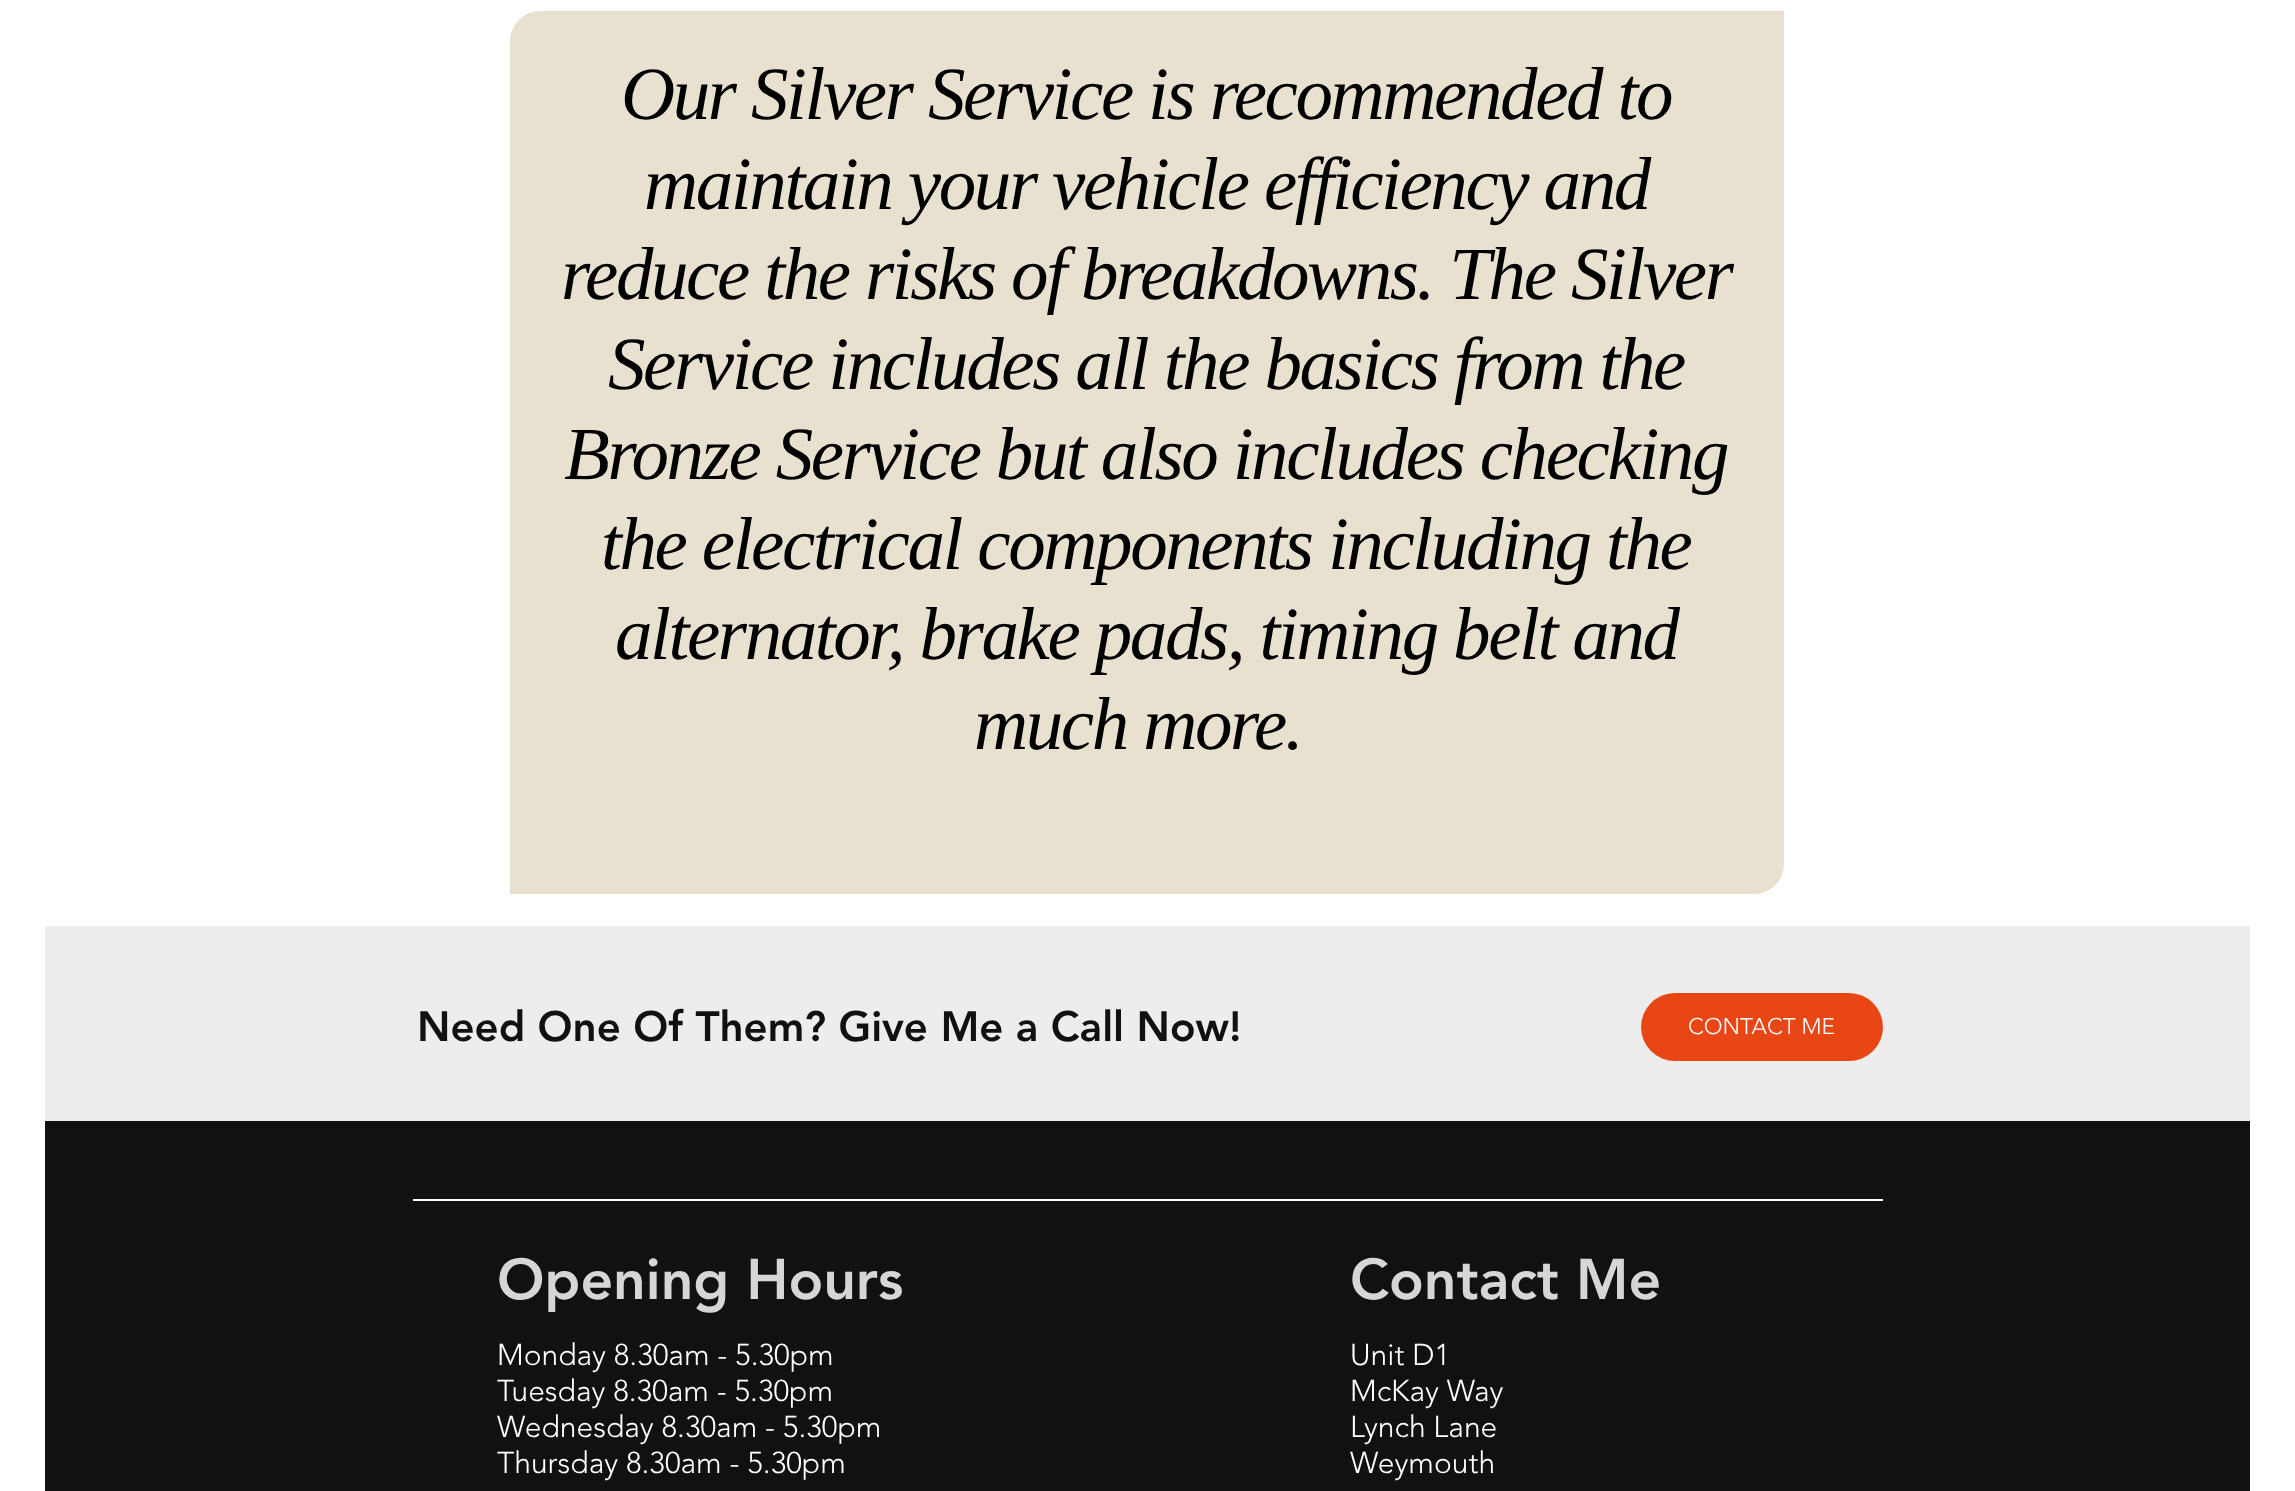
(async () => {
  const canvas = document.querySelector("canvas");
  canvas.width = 2295;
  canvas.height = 1491;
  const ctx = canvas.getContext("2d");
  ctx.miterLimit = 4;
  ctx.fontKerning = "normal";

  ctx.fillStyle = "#ffffff";
  ctx.fillRect(0, 0, 2295, 1491);
  ctx.fillStyle = "#e9e1cf";
  ctx.beginPath();
  ctx.roundRect(510, 11, 1274, 883, [30, 0, 30, 0]);
  ctx.fill();
  ctx.fillStyle = "#ededed";
  ctx.fillRect(45, 926, 2205, 195);
  ctx.fillStyle = "#e94615";
  ctx.beginPath();
  ctx.roundRect(1641, 993, 242, 68, 34);
  ctx.fill();
  ctx.fillStyle = "#111111";
  ctx.fillRect(45, 1121, 2205, 370);
  ctx.fillStyle = "#ffffff";
  ctx.fillRect(413, 1199, 1470, 2);
  ctx.letterSpacing = "-2.4px";
  ctx.font = "italic 75px Liberation Serif";
  ctx.fillStyle = "#000000";
  for (const [text, x, y] of [
    ["Our Silver Service is recommended to", 621, 119],
    ["maintain your vehicle efficiency and", 644, 209],
    ["reduce the risks of breakdowns. The Silver", 561, 299],
    ["Service includes all the basics from the", 608, 389],
    ["Bronze Service but also includes checking", 564, 479],
    ["the electrical components including the", 601, 569],
    ["alternator, brake pads, timing belt and", 615, 659],
    ["much more.", 974, 749],
  ]) {
    ctx.fillText(text, x, y);
  }
  ctx.letterSpacing = "0px";
  ctx.font = "900 42px 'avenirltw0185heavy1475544'";
  ctx.fillStyle = "#111111";
  ctx.fillText("Need One Of Them? Give Me a Call Now!", 417, 1041);
  ctx.font = "300 22.5px 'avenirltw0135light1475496'";
  ctx.fillStyle = "#ffffff";
  ctx.fillText("CONTACT ME", 1688, 1034);
  ctx.font = "900 57px 'avenirltw0185heavy1475544'";
  ctx.fillStyle = "#d6d6d6";
  ctx.fillText("Opening Hours", 497, 1299);
  ctx.fillText("Contact Me", 1350, 1299);
  ctx.font = "300 30px 'avenirltw0135light1475496'";
  ctx.fillStyle = "#ffffff";
  for (const [text, x, y] of [
    ["Monday 8.30am - 5.30pm", 497, 1365],
    ["Tuesday 8.30am - 5.30pm", 497, 1401],
    ["Wednesday 8.30am - 5.30pm", 497, 1437],
    ["Thursday 8.30am - 5.30pm", 497, 1473],
    ["Unit D1", 1350, 1365],
    ["McKay Way", 1350, 1401],
    ["Lynch Lane", 1350, 1437],
    ["Weymouth", 1350, 1473],
  ]) {
    ctx.fillText(text, x, y);
  }
})();
